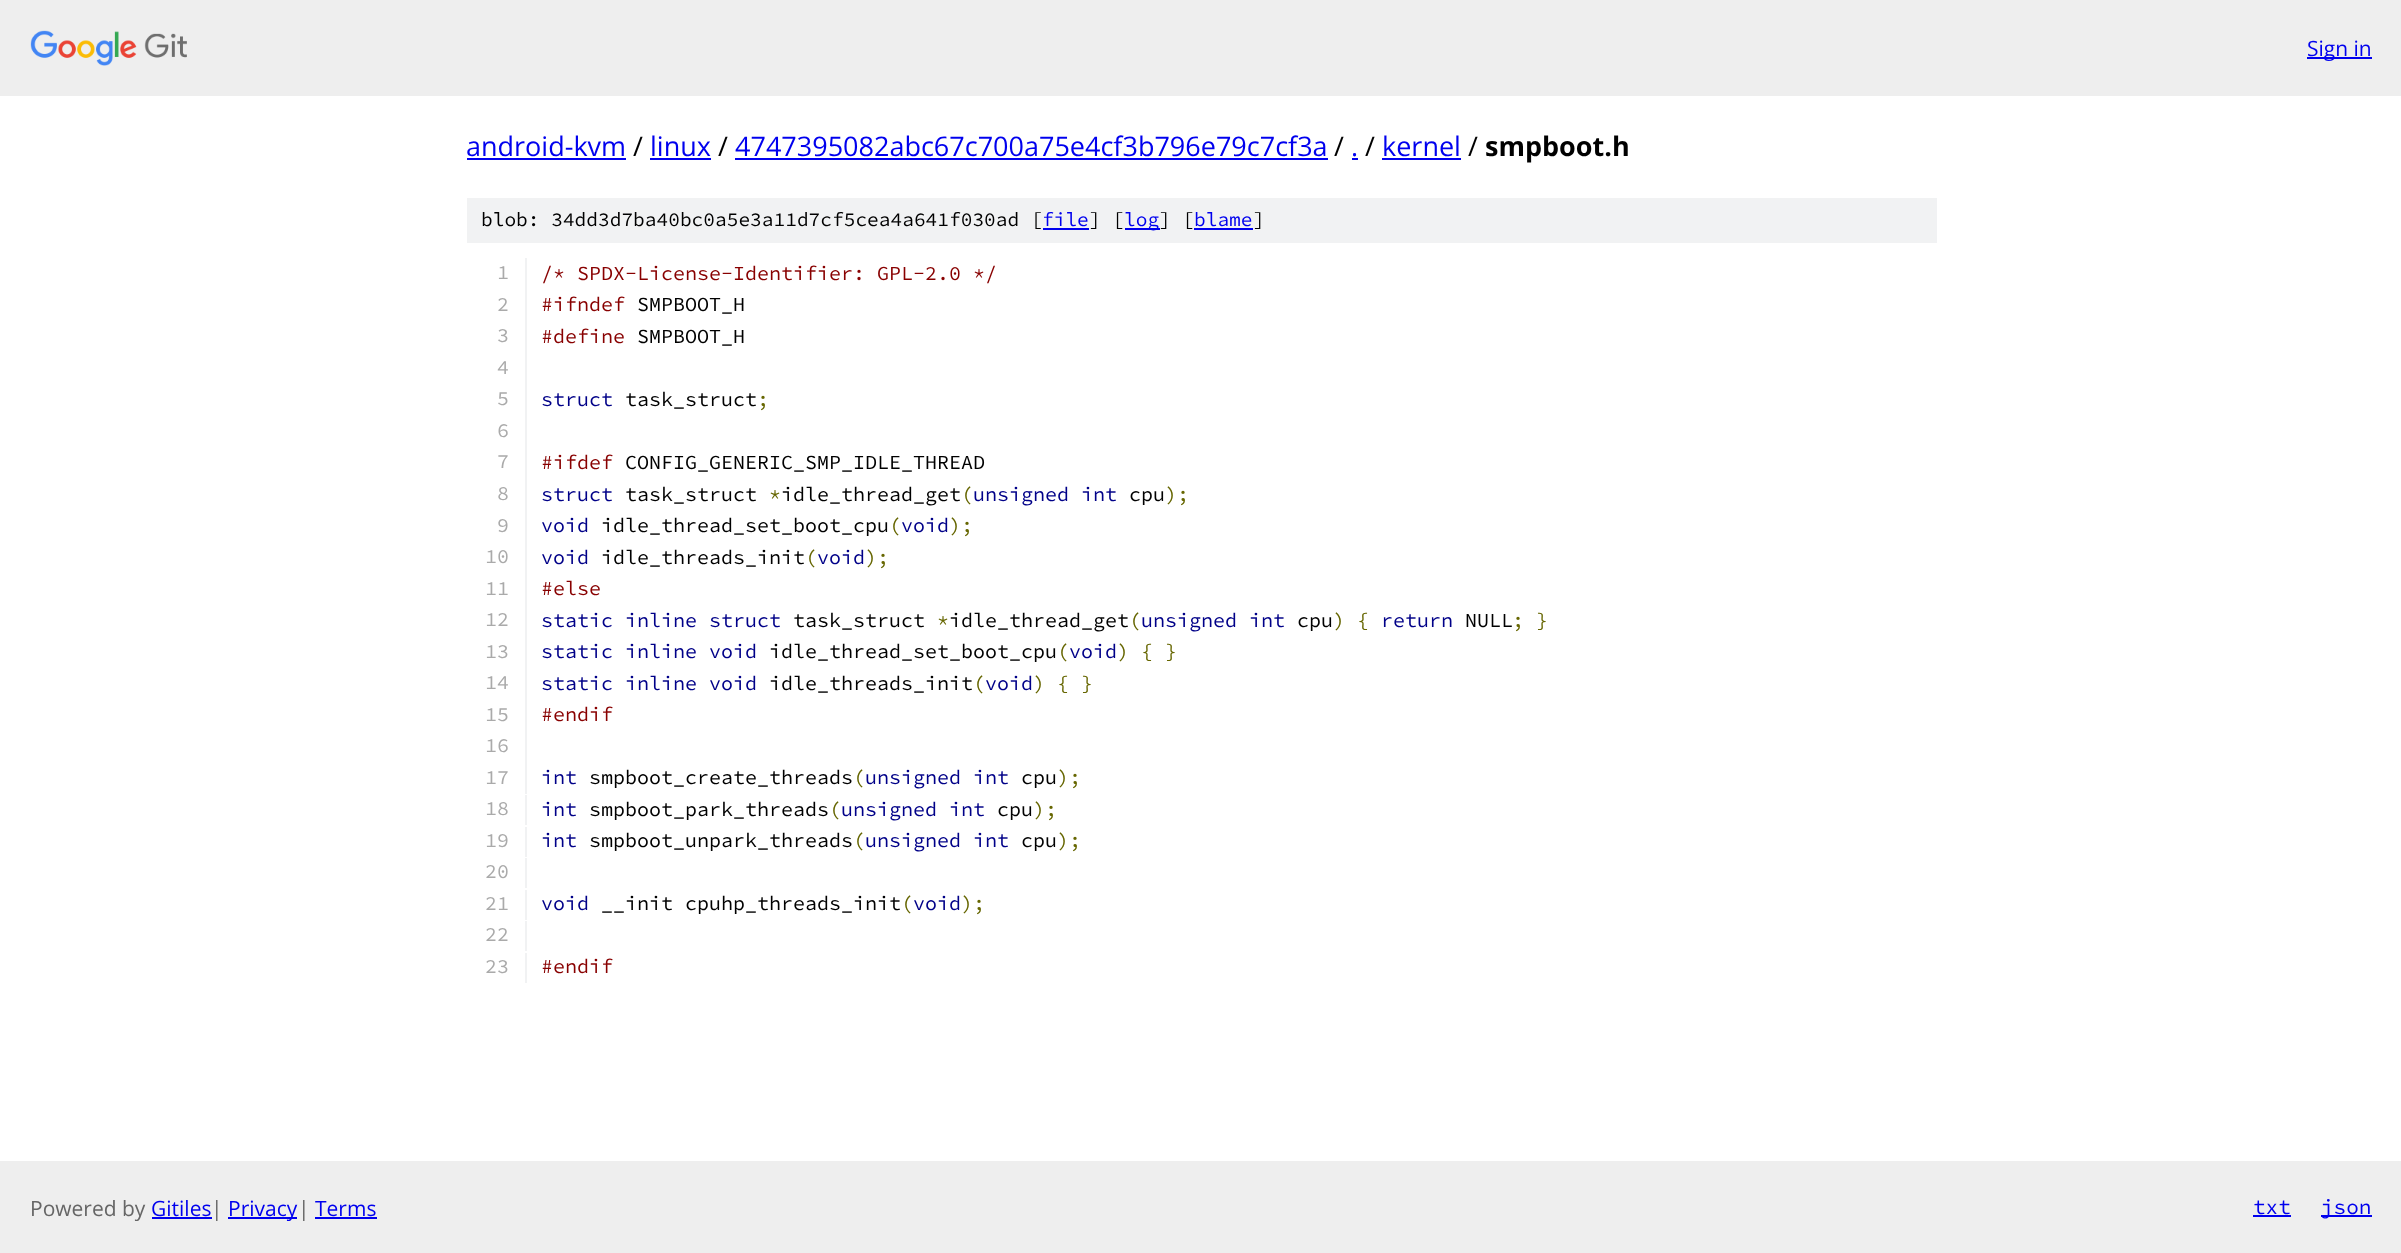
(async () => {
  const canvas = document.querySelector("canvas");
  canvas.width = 2401;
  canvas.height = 1253;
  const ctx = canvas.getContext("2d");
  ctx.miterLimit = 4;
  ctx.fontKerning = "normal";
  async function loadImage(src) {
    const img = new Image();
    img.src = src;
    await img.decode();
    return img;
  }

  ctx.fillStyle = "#ffffff";
  ctx.fillRect(0, 0, 2401, 1253);
  ctx.fillStyle = "#eeeeee";
  ctx.fillRect(0, 0, 2401, 96);
  ctx.drawImage(await loadImage("img/1.png"), 30, 30, 157, 36);
  for (const [x, y, w, h, color] of [
    [2307, 57, 65, 2, "#0000ee"],
    [467, 158, 159, 2, "#0000ee"],
    [650, 158, 61, 2, "#0000ee"],
    [735, 158, 593, 2, "#0000ee"],
    [1352, 158, 6, 2, "#0000ee"],
    [1382, 158, 79, 2, "#0000ee"],
    [467, 198, 1470, 45, "#f1f2f3"],
    [1043, 228, 46, 2, "#0000ee"],
    [1125, 228, 35, 2, "#0000ee"],
    [1194, 228, 59, 2, "#0000ee"],
    [525, 258, 2, 536, "#f1f2f3"],
    [525, 795, 2, 30, "#f1f2f3"],
    [525, 827, 2, 30, "#f1f2f3"],
    [525, 858, 2, 30, "#f1f2f3"],
    [525, 890, 2, 30, "#f1f2f3"],
    [525, 921, 2, 30, "#f1f2f3"],
    [525, 953, 2, 30, "#f1f2f3"],
    [0, 1161, 2401, 92, "#eeeeee"],
    [152, 1217, 60, 2, "#0000ee"],
    [228, 1217, 69, 2, "#0000ee"],
    [315, 1217, 62, 2, "#0000ee"],
    [2253, 1215, 38, 2, "#0000ee"],
    [2321, 1215, 51, 2, "#0000ee"],
  ]) {
    ctx.fillStyle = color;
    ctx.fillRect(x, y, w, h);
  }
  ctx.font = "21px Open Sans";
  ctx.fillText("Sign in", 2307, 56);
  ctx.font = "27px Open Sans";
  ctx.fillText("android-kvm", 466, 156);
  ctx.fillStyle = "#000000";
  ctx.fillText("/", 633, 156);
  ctx.fillStyle = "#0000ee";
  ctx.fillText("linux", 650, 156);
  ctx.fillStyle = "#000000";
  ctx.fillText("/", 718, 156);
  ctx.fillStyle = "#0000ee";
  ctx.fillText("4747395082abc67c700a75e4cf3b796e79c7cf3a", 735, 156);
  ctx.fillStyle = "#000000";
  ctx.fillText("/", 1334, 156);
  ctx.fillStyle = "#0000ee";
  ctx.fillText(".", 1351, 156);
  ctx.fillStyle = "#000000";
  ctx.fillText("/", 1365, 156);
  ctx.fillStyle = "#0000ee";
  ctx.fillText("kernel", 1382, 156);
  ctx.fillStyle = "#000000";
  ctx.fillText("/", 1468, 156);
  ctx.font = "bold 27px Open Sans";
  ctx.fillText("smpboot.h", 1485, 156);
  ctx.font = "200 19.5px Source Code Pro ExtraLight";
  ctx.fillText("blob: 34dd3d7ba40bc0a5e3a11d7cf5cea4a641f030ad [", 481, 226);
  ctx.fillStyle = "#0000ee";
  ctx.fillText("file", 1042, 226);
  ctx.fillStyle = "#000000";
  ctx.fillText("] [", 1089, 226);
  ctx.fillStyle = "#0000ee";
  ctx.fillText("log", 1124, 226);
  ctx.fillStyle = "#000000";
  ctx.fillText("] [", 1159, 226);
  ctx.fillStyle = "#0000ee";
  ctx.fillText("blame", 1194, 226);
  ctx.fillStyle = "#000000";
  ctx.fillText("]", 1253, 226);
  ctx.font = "200 20px Source Code Pro ExtraLight";
  ctx.fillStyle = "#aaaaaa";
  ctx.fillText("1", 497, 279);
  ctx.fillStyle = "#880000";
  ctx.fillText("/* SPDX-License-Identifier: GPL-2.0 */", 541, 280);
  ctx.fillStyle = "#aaaaaa";
  ctx.fillText("2", 497, 311);
  ctx.fillStyle = "#880000";
  ctx.fillText("#ifndef", 541, 311);
  ctx.fillStyle = "#000000";
  ctx.fillText("SMPBOOT_H", 637, 311);
  ctx.fillStyle = "#aaaaaa";
  ctx.fillText("3", 497, 342);
  ctx.fillStyle = "#880000";
  ctx.fillText("#define", 541, 343);
  ctx.fillStyle = "#000000";
  ctx.fillText("SMPBOOT_H", 637, 343);
  ctx.fillStyle = "#aaaaaa";
  ctx.fillText("4", 497, 374);
  ctx.fillText("5", 497, 405);
  ctx.fillStyle = "#000088";
  ctx.fillText("struct", 541, 406);
  ctx.fillStyle = "#000000";
  ctx.fillText("task_struct", 625, 406);
  ctx.fillStyle = "#666600";
  ctx.fillText(";", 757, 406);
  ctx.fillStyle = "#aaaaaa";
  ctx.fillText("6", 497, 437);
  ctx.fillText("7", 497, 468);
  ctx.fillStyle = "#880000";
  ctx.fillText("#ifdef", 541, 469);
  ctx.fillStyle = "#000000";
  ctx.fillText("CONFIG_GENERIC_SMP_IDLE_THREAD", 625, 469);
  ctx.fillStyle = "#aaaaaa";
  ctx.fillText("8", 497, 500);
  ctx.fillStyle = "#000088";
  ctx.fillText("struct", 541, 501);
  ctx.fillStyle = "#000000";
  ctx.fillText("task_struct", 625, 501);
  ctx.fillStyle = "#666600";
  ctx.fillText("*", 769, 501);
  ctx.fillStyle = "#000000";
  ctx.fillText("idle_thread_get", 781, 501);
  ctx.fillStyle = "#666600";
  ctx.fillText("(", 961, 501);
  ctx.fillStyle = "#000088";
  ctx.fillText("unsigned int", 973, 501);
  ctx.fillStyle = "#000000";
  ctx.fillText("cpu", 1129, 501);
  ctx.fillStyle = "#666600";
  ctx.fillText(");", 1165, 501);
  ctx.fillStyle = "#aaaaaa";
  ctx.fillText("9", 497, 532);
  ctx.fillStyle = "#000088";
  ctx.fillText("void", 541, 532);
  ctx.fillStyle = "#000000";
  ctx.fillText("idle_thread_set_boot_cpu", 601, 532);
  ctx.fillStyle = "#666600";
  ctx.fillText("(", 889, 532);
  ctx.fillStyle = "#000088";
  ctx.fillText("void", 901, 532);
  ctx.fillStyle = "#666600";
  ctx.fillText(");", 949, 532);
  ctx.fillStyle = "#aaaaaa";
  ctx.fillText("10", 485, 563);
  ctx.fillStyle = "#000088";
  ctx.fillText("void", 541, 564);
  ctx.fillStyle = "#000000";
  ctx.fillText("idle_threads_init", 601, 564);
  ctx.fillStyle = "#666600";
  ctx.fillText("(", 805, 564);
  ctx.fillStyle = "#000088";
  ctx.fillText("void", 817, 564);
  ctx.fillStyle = "#666600";
  ctx.fillText(");", 865, 564);
  ctx.fillStyle = "#aaaaaa";
  ctx.fillText("11", 485, 595);
  ctx.fillStyle = "#880000";
  ctx.fillText("#else", 541, 595);
  ctx.fillStyle = "#aaaaaa";
  ctx.fillText("12", 485, 626);
  ctx.fillStyle = "#000088";
  ctx.fillText("static inline struct", 541, 627);
  ctx.fillStyle = "#000000";
  ctx.fillText("task_struct", 793, 627);
  ctx.fillStyle = "#666600";
  ctx.fillText("*", 937, 627);
  ctx.fillStyle = "#000000";
  ctx.fillText("idle_thread_get", 949, 627);
  ctx.fillStyle = "#666600";
  ctx.fillText("(", 1129, 627);
  ctx.fillStyle = "#000088";
  ctx.fillText("unsigned int", 1141, 627);
  ctx.fillStyle = "#000000";
  ctx.fillText("cpu", 1297, 627);
  ctx.fillStyle = "#666600";
  ctx.fillText(") {", 1333, 627);
  ctx.fillStyle = "#000088";
  ctx.fillText("return", 1381, 627);
  ctx.fillStyle = "#000000";
  ctx.fillText("NULL", 1465, 627);
  ctx.fillStyle = "#666600";
  ctx.fillText("; }", 1512, 627);
  ctx.fillStyle = "#aaaaaa";
  ctx.fillText("13", 485, 658);
  ctx.fillStyle = "#000088";
  ctx.fillText("static inline void", 541, 658);
  ctx.fillStyle = "#000000";
  ctx.fillText("idle_thread_set_boot_cpu", 769, 658);
  ctx.fillStyle = "#666600";
  ctx.fillText("(", 1057, 658);
  ctx.fillStyle = "#000088";
  ctx.fillText("void", 1069, 658);
  ctx.fillStyle = "#666600";
  ctx.fillText(") { }", 1117, 658);
  ctx.fillStyle = "#aaaaaa";
  ctx.fillText("14", 485, 689);
  ctx.fillStyle = "#000088";
  ctx.fillText("static inline void", 541, 690);
  ctx.fillStyle = "#000000";
  ctx.fillText("idle_threads_init", 769, 690);
  ctx.fillStyle = "#666600";
  ctx.fillText("(", 973, 690);
  ctx.fillStyle = "#000088";
  ctx.fillText("void", 985, 690);
  ctx.fillStyle = "#666600";
  ctx.fillText(") { }", 1033, 690);
  ctx.fillStyle = "#aaaaaa";
  ctx.fillText("15", 485, 721);
  ctx.fillStyle = "#880000";
  ctx.fillText("#endif", 541, 721);
  ctx.fillStyle = "#aaaaaa";
  ctx.fillText("16", 485, 752);
  ctx.fillText("17", 485, 784);
  ctx.fillStyle = "#000088";
  ctx.fillText("int", 541, 784);
  ctx.fillStyle = "#000000";
  ctx.fillText("smpboot_create_threads", 589, 784);
  ctx.fillStyle = "#666600";
  ctx.fillText("(", 853, 784);
  ctx.fillStyle = "#000088";
  ctx.fillText("unsigned int", 865, 784);
  ctx.fillStyle = "#000000";
  ctx.fillText("cpu", 1021, 784);
  ctx.fillStyle = "#666600";
  ctx.fillText(");", 1057, 784);
  ctx.fillStyle = "#aaaaaa";
  ctx.fillText("18", 485, 815);
  ctx.fillStyle = "#000088";
  ctx.fillText("int", 541, 816);
  ctx.fillStyle = "#000000";
  ctx.fillText("smpboot_park_threads", 589, 816);
  ctx.fillStyle = "#666600";
  ctx.fillText("(", 829, 816);
  ctx.fillStyle = "#000088";
  ctx.fillText("unsigned int", 841, 816);
  ctx.fillStyle = "#000000";
  ctx.fillText("cpu", 997, 816);
  ctx.fillStyle = "#666600";
  ctx.fillText(");", 1033, 816);
  ctx.fillStyle = "#aaaaaa";
  ctx.fillText("19", 485, 847);
  ctx.fillStyle = "#000088";
  ctx.fillText("int", 541, 847);
  ctx.fillStyle = "#000000";
  ctx.fillText("smpboot_unpark_threads", 589, 847);
  ctx.fillStyle = "#666600";
  ctx.fillText("(", 853, 847);
  ctx.fillStyle = "#000088";
  ctx.fillText("unsigned int", 865, 847);
  ctx.fillStyle = "#000000";
  ctx.fillText("cpu", 1021, 847);
  ctx.fillStyle = "#666600";
  ctx.fillText(");", 1057, 847);
  ctx.fillStyle = "#aaaaaa";
  ctx.fillText("20", 485, 878);
  ctx.fillText("21", 485, 910);
  ctx.fillStyle = "#000088";
  ctx.fillText("void", 541, 910);
  ctx.fillStyle = "#000000";
  ctx.fillText("__init cpuhp_threads_init", 601, 910);
  ctx.fillStyle = "#666600";
  ctx.fillText("(", 901, 910);
  ctx.fillStyle = "#000088";
  ctx.fillText("void", 913, 910);
  ctx.fillStyle = "#666600";
  ctx.fillText(");", 961, 910);
  ctx.fillStyle = "#aaaaaa";
  ctx.fillText("22", 485, 941);
  ctx.fillText("23", 485, 973);
  ctx.fillStyle = "#880000";
  ctx.fillText("#endif", 541, 973);
  ctx.font = "21px Open Sans";
  ctx.fillStyle = "#666666";
  ctx.fillText("Powered by", 30, 1216);
  ctx.fillStyle = "#0000ee";
  ctx.fillText("Gitiles", 151, 1216);
  ctx.fillStyle = "#666666";
  ctx.fillText("|", 211, 1216);
  ctx.fillStyle = "#0000ee";
  ctx.fillText("Privacy", 228, 1216);
  ctx.fillStyle = "#666666";
  ctx.fillText("|", 298, 1216);
  ctx.fillStyle = "#0000ee";
  ctx.fillText("Terms", 315, 1216);
  ctx.font = "200 21px Source Code Pro ExtraLight";
  ctx.fillText("txt", 2253, 1214);
  ctx.fillText("json", 2321, 1214);
})();
